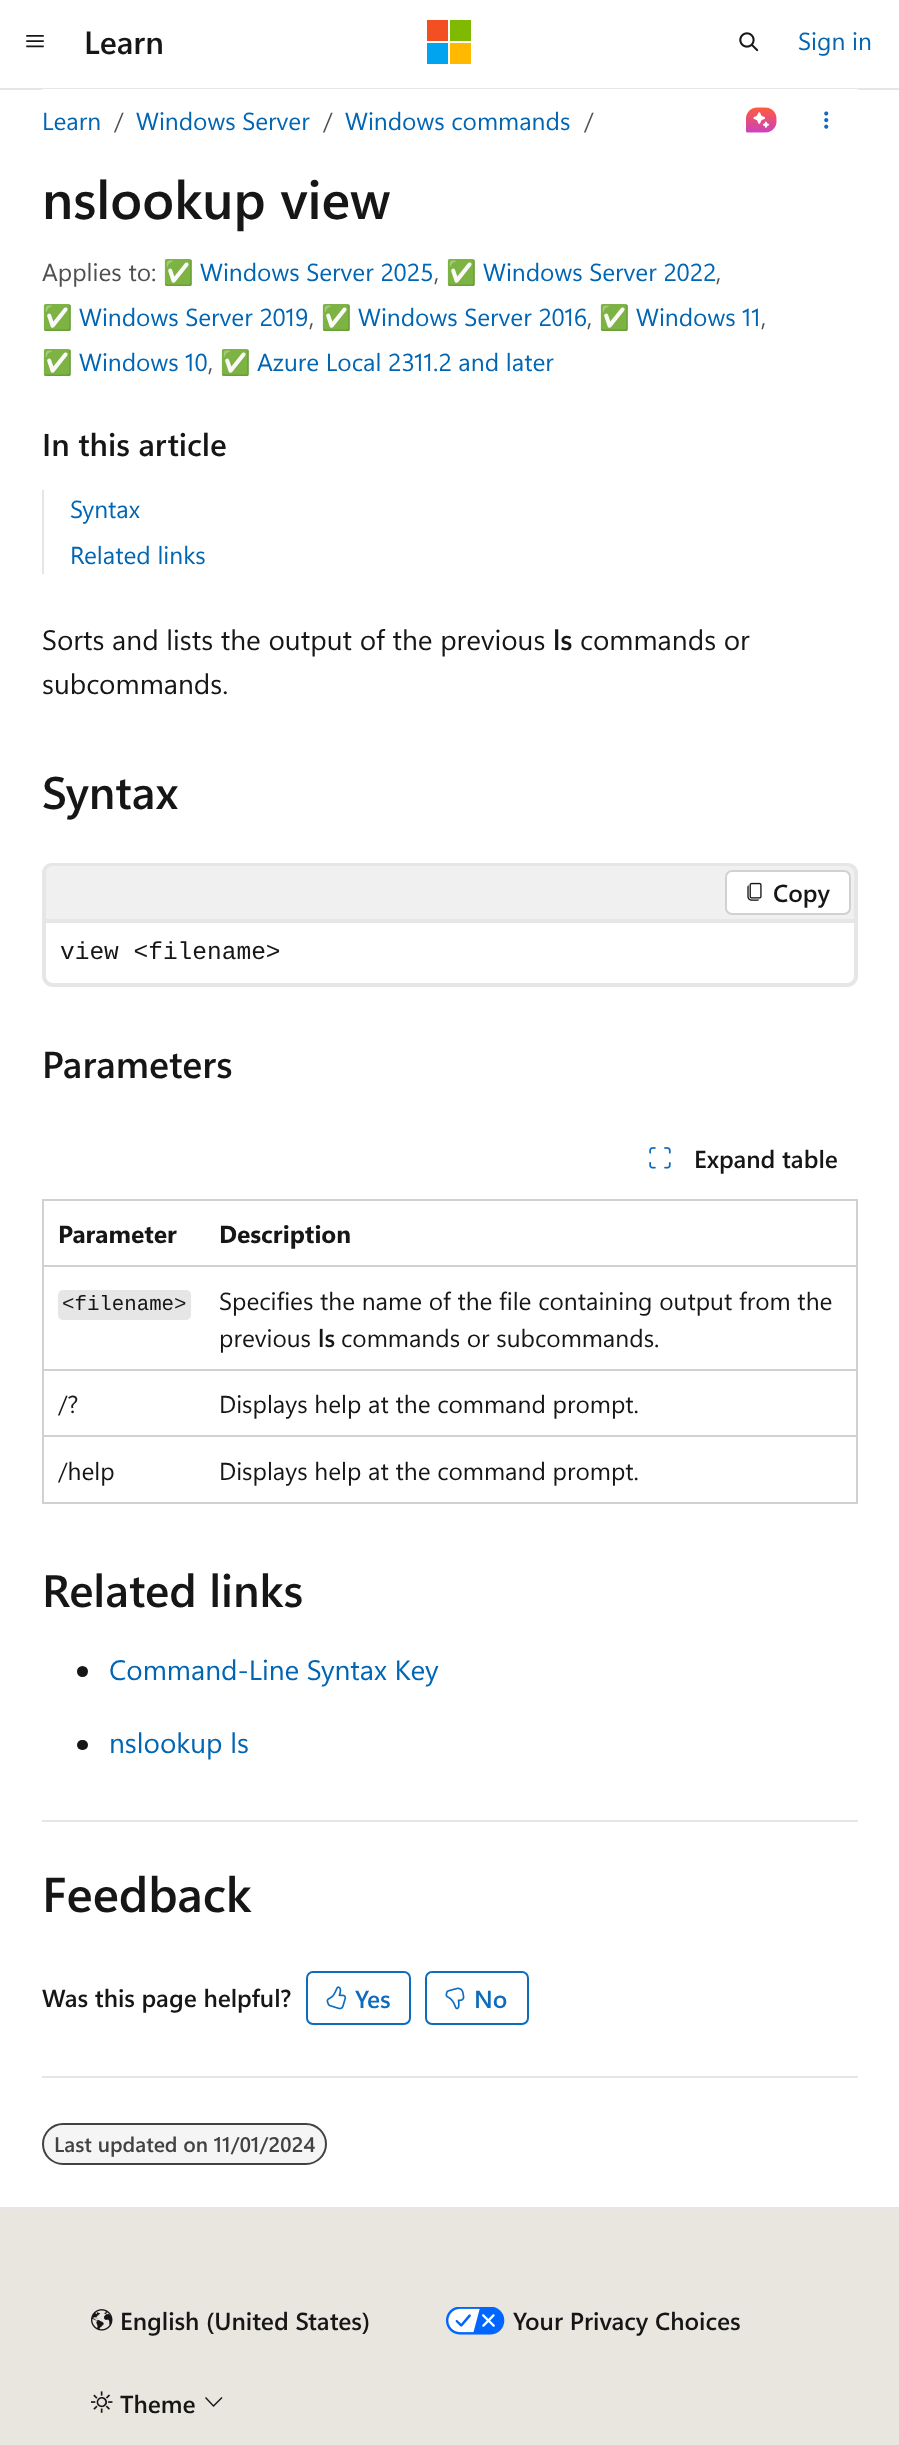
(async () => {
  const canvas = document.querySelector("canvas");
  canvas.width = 899;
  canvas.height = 2445;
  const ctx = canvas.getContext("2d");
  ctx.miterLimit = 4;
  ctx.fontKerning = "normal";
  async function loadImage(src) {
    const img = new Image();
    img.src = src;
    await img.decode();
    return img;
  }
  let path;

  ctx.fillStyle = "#ffffff";
  ctx.fillRect(0, 0, 899, 2445);
  ctx.fillStyle = "#e6e6e6";
  ctx.fillRect(0, 88, 899, 2);
  ctx.drawImage(await loadImage("img/1.png"), 26, 35, 18, 13);
  for (const [x, y, w, h, color] of [
    [427, 20, 21, 21, "#f25022"],
    [450, 20, 21, 21, "#7fba00"],
    [427, 43, 21, 21, "#00a4ef"],
    [450, 43, 21, 21, "#ffb900"],
  ]) {
    ctx.fillStyle = color;
    ctx.fillRect(x, y, w, h);
  }
  ctx.drawImage(await loadImage("img/2.png"), 739, 32, 20, 20);
  ctx.fillStyle = "#ffffff";
  ctx.fillRect(42, 89, 816, 1);
  ctx.drawImage(await loadImage("img/3.png"), 746, 107, 31, 26);
  ctx.drawImage(await loadImage("img/4.png"), 824, 111, 5, 18);
  ctx.fillStyle = "#e6e6e6";
  ctx.fillRect(42, 490, 2, 84);
  ctx.fillStyle = "#f0f0f0";
  ctx.beginPath();
  ctx.roundRect(42, 863, 816, 56, [11, 11, 0, 0]);
  ctx.fill();
  ctx.fillStyle = "#e6e6e6";
  path = new Path2D("M52 863H847C853 863 858 867 858 873V919H42V873C42 867 47 863 52 863ZM52 866H847C851 866 854 869 854 873V919H46V873C46 869 49 866 52 866Z");
  ctx.fill(path, "evenodd");
  ctx.fillStyle = "#ffffff";
  ctx.beginPath();
  ctx.roundRect(726, 871, 124, 43, 6);
  ctx.fill();
  ctx.strokeStyle = "#d1d1d1";
  ctx.lineWidth = 2;
  ctx.stroke();
  ctx.drawImage(await loadImage("img/5.png"), 747, 882, 15, 19);
  ctx.beginPath();
  ctx.roundRect(44, 921, 812, 64, [0, 0, 9, 9]);
  ctx.strokeStyle = "#e6e6e6";
  ctx.lineWidth = 4;
  ctx.stroke();
  ctx.drawImage(await loadImage("img/6.png"), 649, 1147, 22, 22);
  for (const [x, y, w, h, color] of [
    [42, 1199, 816, 2, "#d1d1d1"],
    [856, 1199, 2, 304, "#d1d1d1"],
    [42, 1502, 816, 2, "#d1d1d1"],
    [42, 1199, 2, 304, "#d1d1d1"],
  ]) {
    ctx.fillStyle = color;
    ctx.fillRect(x, y, w, h);
  }
  ctx.fillStyle = "#e6e6e6";
  ctx.beginPath();
  ctx.roundRect(58, 1290, 133, 30, 5);
  ctx.fill();
  for (const [x, y, w, h, color] of [
    [42, 1265, 816, 2, "#d1d1d1"],
    [42, 1369, 816, 2, "#d1d1d1"],
    [42, 1435, 816, 2, "#d1d1d1"],
  ]) {
    ctx.fillStyle = color;
    ctx.fillRect(x, y, w, h);
  }
  ctx.fillStyle = "#161616";
  ctx.beginPath();
  ctx.arc(82.5, 1671.5, 5.5, 0, Math.PI * 2);
  ctx.fill();
  ctx.beginPath();
  ctx.roundRect(77, 1740, 11, 10, 5);
  ctx.fill();
  ctx.fillStyle = "#e6e6e6";
  ctx.fillRect(42, 1820, 816, 2);
  ctx.beginPath();
  ctx.roundRect(307, 1972, 103, 52, 6);
  ctx.strokeStyle = "#0f6cbd";
  ctx.lineWidth = 2;
  ctx.stroke();
  ctx.drawImage(await loadImage("img/7.png"), 326, 1986, 21, 24);
  ctx.beginPath();
  ctx.roundRect(426, 1972, 102, 52, 6);
  ctx.stroke();
  ctx.drawImage(await loadImage("img/8.png"), 445, 1987, 20, 23);
  ctx.fillRect(42, 2076, 816, 2);
  ctx.fillStyle = "#f5f5f5";
  ctx.beginPath();
  ctx.roundRect(43, 2124, 283, 40, 20);
  ctx.fill();
  ctx.strokeStyle = "#424242";
  ctx.stroke();
  ctx.fillStyle = "#e8e6df";
  ctx.fillRect(0, 2209, 899, 236);
  ctx.fillStyle = "#e6e6e6";
  ctx.fillRect(0, 2207, 899, 2);
  ctx.drawImage(await loadImage("img/9.png"), 91, 2309, 22, 22);
  ctx.drawImage(await loadImage("img/10.png"), 445, 2307, 60, 28);
  ctx.drawImage(await loadImage("img/11.png"), 91, 2391, 22, 22);
  ctx.fillStyle = "#161616";
  path = new Path2D("M213.5 2407L205 2398L206 2397L213.5 2405L221.5 2397L222.5 2398Z");
  ctx.fill(path);
  ctx.font = "600 32px Segoe UI";
  ctx.fillText("Learn", 84, 54);
  ctx.font = "24.5px Segoe UI";
  ctx.fillStyle = "#0065b3";
  ctx.fillText("Sign in", 798, 50);
  ctx.fillText("Learn", 42, 130);
  ctx.fillStyle = "#505050";
  ctx.fillText("/", 114, 130);
  ctx.fillStyle = "#0065b3";
  ctx.fillText("Windows Server", 136, 130);
  ctx.fillStyle = "#505050";
  ctx.fillText("/", 323, 130);
  ctx.fillStyle = "#0065b3";
  ctx.fillText("Windows commands", 345, 130);
  ctx.fillStyle = "#505050";
  ctx.fillText("/", 584, 130);
  ctx.font = "600 53.5px Segoe UI";
  ctx.fillStyle = "#161616";
  ctx.fillText("nslookup view", 42, 219);
  ctx.font = "24.5px Segoe UI";
  ctx.fillStyle = "#505050";
  ctx.fillText("Applies to:", 42, 281);
  ctx.font = "24.5px Noto Color Emoji";
  ctx.fillText("✅", 163, 281);
  ctx.font = "24.5px Segoe UI";
  ctx.fillStyle = "#0065b3";
  ctx.fillText("Windows Server 2025", 200, 281);
  ctx.fillStyle = "#505050";
  ctx.fillText(",", 434, 281);
  ctx.font = "24.5px Noto Color Emoji";
  ctx.fillText("✅", 446, 281);
  ctx.font = "24.5px Segoe UI";
  ctx.fillStyle = "#0065b3";
  ctx.fillText("Windows Server 2022", 483, 281);
  ctx.fillStyle = "#505050";
  ctx.fillText(",", 716, 281);
  ctx.font = "24.5px Noto Color Emoji";
  ctx.fillText("✅", 42, 326);
  ctx.font = "24.5px Segoe UI";
  ctx.fillStyle = "#0065b3";
  ctx.fillText("Windows Server 2019", 79, 326);
  ctx.fillStyle = "#505050";
  ctx.fillText(",", 309, 326);
  ctx.font = "24.5px Noto Color Emoji";
  ctx.fillText("✅", 321, 326);
  ctx.font = "24.5px Segoe UI";
  ctx.fillStyle = "#0065b3";
  ctx.fillText("Windows Server 2016", 358, 326);
  ctx.fillStyle = "#505050";
  ctx.fillText(",", 587, 326);
  ctx.font = "24.5px Noto Color Emoji";
  ctx.fillText("✅", 599, 326);
  ctx.font = "24.5px Segoe UI";
  ctx.fillStyle = "#0065b3";
  ctx.fillText("Windows 11", 636, 326);
  ctx.fillStyle = "#505050";
  ctx.fillText(",", 761, 326);
  ctx.font = "24.5px Noto Color Emoji";
  ctx.fillText("✅", 42, 371);
  ctx.font = "24.5px Segoe UI";
  ctx.fillStyle = "#0065b3";
  ctx.fillText("Windows 10", 79, 371);
  ctx.fillStyle = "#505050";
  ctx.fillText(",", 208, 371);
  ctx.font = "24.5px Noto Color Emoji";
  ctx.fillText("✅", 220, 371);
  ctx.font = "24.5px Segoe UI";
  ctx.fillStyle = "#0065b3";
  ctx.fillText("Azure Local 2311.2 and later", 257, 371);
  ctx.font = "600 31.5px Segoe UI";
  ctx.fillStyle = "#161616";
  ctx.fillText("In this article", 42, 456);
  ctx.font = "24.5px Segoe UI";
  ctx.fillStyle = "#0065b3";
  ctx.fillText("Syntax", 70, 518);
  ctx.fillText("Related links", 70, 564);
  ctx.font = "28px Segoe UI";
  ctx.fillStyle = "#161616";
  ctx.fillText("Sorts and lists the output of the previous", 42, 650);
  ctx.font = "600 28px Segoe UI";
  ctx.fillText("ls", 553, 650);
  ctx.font = "28px Segoe UI";
  ctx.fillText("commands or", 580, 650);
  ctx.fillText("subcommands.", 42, 694);
  ctx.font = "600 45.5px Segoe UI";
  ctx.fillText("Syntax", 42, 809);
  ctx.font = "600 24.5px Segoe UI";
  ctx.fillText("Copy", 773, 902);
  ctx.font = "24.5px Liberation Mono";
  ctx.fillText("view <filename>", 60, 959);
  ctx.font = "600 37.5px Segoe UI";
  ctx.fillText("Parameters", 42, 1078);
  ctx.font = "600 24.5px Segoe UI";
  ctx.fillText("Expand table", 694, 1168);
  ctx.font = "bold 24.5px Segoe UI";
  ctx.fillText("Parameter", 58, 1243);
  ctx.fillText("Description", 219, 1243);
  ctx.font = "20.75px Liberation Mono";
  ctx.fillText("<filename>", 62, 1310);
  ctx.font = "24.5px Segoe UI";
  ctx.fillText("Specifies the name of the file containing output from the", 219, 1310);
  ctx.fillText("previous", 219, 1347);
  ctx.font = "600 24.5px Segoe UI";
  ctx.fillText("ls", 318, 1347);
  ctx.font = "24.5px Segoe UI";
  for (const [text, x, y] of [
    ["commands or subcommands.", 341, 1347],
    ["/?", 58, 1413],
    ["Displays help at the command prompt.", 219, 1413],
    ["/help", 58, 1480],
    ["Displays help at the command prompt.", 219, 1480],
  ]) {
    ctx.fillText(text, x, y);
  }
  ctx.font = "600 45.5px Segoe UI";
  ctx.fillText("Related links", 42, 1607);
  ctx.font = "28px Segoe UI";
  ctx.fillStyle = "#0065b3";
  ctx.fillText("Command-Line Syntax Key", 109, 1680);
  ctx.fillText("nslookup ls", 109, 1753);
  ctx.font = "600 49px Segoe UI";
  ctx.fillStyle = "#161616";
  ctx.fillText("Feedback", 42, 1912);
  ctx.font = "600 24.5px Segoe UI";
  ctx.fillText("Was this page helpful?", 42, 2007);
  ctx.fillStyle = "#0f6cbd";
  ctx.fillText("Yes", 355, 2008);
  ctx.fillText("No", 474, 2008);
  ctx.font = "600 21px Segoe UI";
  ctx.fillStyle = "#424242";
  ctx.fillText("Last updated on 11/01/2024", 54, 2152);
  ctx.font = "600 24.5px Segoe UI";
  ctx.fillStyle = "#161616";
  for (const [text, x, y] of [
    ["English (United States)", 120, 2330],
    ["Your Privacy Choices", 513, 2330],
    ["Theme", 120, 2413],
  ]) {
    ctx.fillText(text, x, y);
  }
})();
